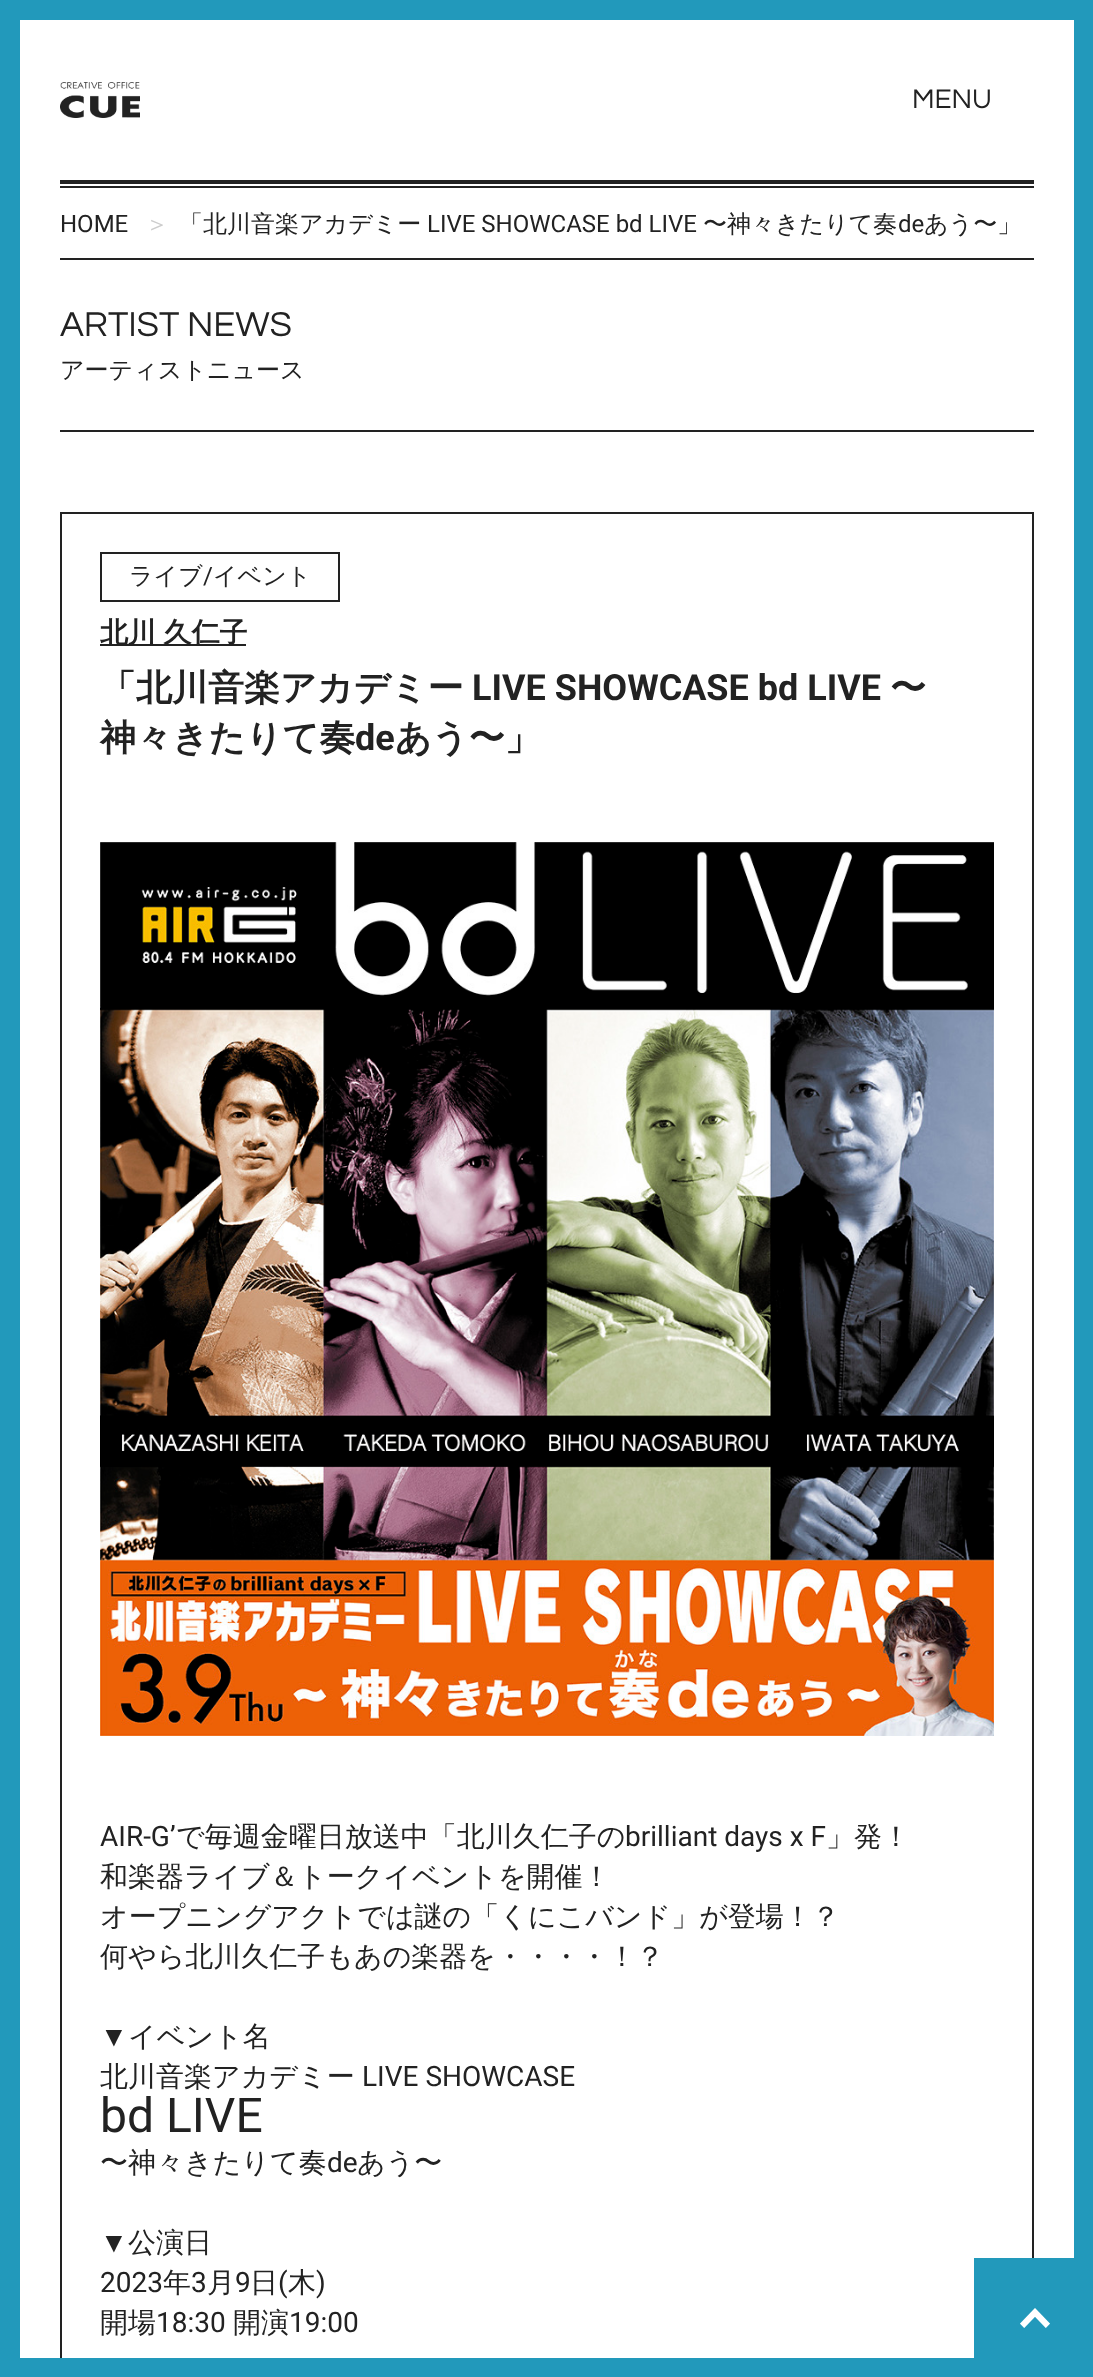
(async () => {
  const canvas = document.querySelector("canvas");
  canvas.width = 1093;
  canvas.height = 2377;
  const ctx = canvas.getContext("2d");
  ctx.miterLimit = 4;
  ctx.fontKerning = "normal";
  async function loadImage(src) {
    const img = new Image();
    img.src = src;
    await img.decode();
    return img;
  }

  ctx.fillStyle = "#ffffff";
  ctx.fillRect(0, 0, 1093, 2377);
  ctx.fillStyle = "#2299bb";
  ctx.fillRect(20, 0, 1054, 20);
  ctx.fillRect(0, 0, 20, 2358);
  ctx.drawImage(await loadImage("img/1.png"), 60, 82, 80, 36);
  for (const [x, y, w, h, color] of [
    [1074, 0, 19, 2258, "#2299bb"],
    [60, 180, 974, 4, "#222222"],
    [60, 258, 974, 2, "#222222"],
    [60, 186, 974, 2, "#222222"],
    [60, 430, 974, 2, "#222222"],
  ]) {
    ctx.fillStyle = color;
    ctx.fillRect(x, y, w, h);
  }
  ctx.strokeStyle = "#222222";
  ctx.lineWidth = 2;
  ctx.strokeRect(61, 513, 972, 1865);
  ctx.strokeRect(101, 553, 238, 48);
  ctx.fillRect(100, 644, 146, 2);
  ctx.drawImage(await loadImage("img/2.png"), 100, 842, 894, 894);
  ctx.fillStyle = "#2299bb";
  ctx.fillRect(974, 2258, 119, 119);
  ctx.drawImage(await loadImage("img/3.png"), 1020, 2308, 30, 20);
  ctx.fillRect(0, 2358, 974, 19);
  ctx.font = "28px Questrial";
  ctx.fillStyle = "#222222";
  ctx.fillText("MENU", 912, 108);
  ctx.font = "24px Roboto";
  ctx.fillText("HOME", 60, 232);
  ctx.font = "500 24px WenQuanYi Zen Hei";
  ctx.fillStyle = "#cccccc";
  ctx.fillText("＞", 145, 232);
  ctx.fillStyle = "#222222";
  ctx.fillText("「北川音楽アカデミー", 179, 232);
  ctx.font = "24px Roboto";
  ctx.fillText("LIVE SHOWCASE bd LIVE", 427, 232);
  ctx.font = "500 24px WenQuanYi Zen Hei";
  ctx.fillText("〜神々きたりて奏", 703, 232);
  ctx.font = "24px Roboto";
  ctx.fillText("de", 898, 232);
  ctx.font = "500 24px WenQuanYi Zen Hei";
  ctx.fillText("あう〜」", 924, 232);
  ctx.font = "36px Questrial";
  ctx.fillText("ARTIST NEWS", 60, 336);
  ctx.font = "500 24px WenQuanYi Zen Hei";
  ctx.fillText("アーティストニュース", 60, 378);
  ctx.fillText("ライブ", 129, 584);
  ctx.font = "24px Roboto";
  ctx.fillText("/", 203, 584);
  ctx.font = "500 24px WenQuanYi Zen Hei";
  ctx.fillText("イベント", 213, 584);
  ctx.wordSpacing = "-1px";
  ctx.font = "bold 28px WenQuanYi Zen Hei";
  ctx.fillText("北川 久仁子", 100, 642);
  ctx.wordSpacing = "0px";
  ctx.font = "bold 36px WenQuanYi Zen Hei";
  ctx.fillText("「北川音楽アカデミー", 100, 700);
  ctx.font = "bold 36px Roboto";
  ctx.fillText("LIVE SHOWCASE bd LIVE", 472, 700);
  ctx.font = "bold 36px WenQuanYi Zen Hei";
  ctx.fillText("〜", 890, 700);
  ctx.fillText("神々きたりて奏", 100, 750);
  ctx.font = "bold 36px Roboto";
  ctx.fillText("de", 355, 750);
  ctx.font = "bold 36px WenQuanYi Zen Hei";
  ctx.fillText("あう〜」", 395, 750);
  ctx.font = "28px Roboto";
  ctx.fillText("AIR-G’", 100, 1846);
  ctx.font = "500 28px WenQuanYi Zen Hei";
  ctx.fillText("で毎週金曜日放送中「北川久仁子の", 176, 1846);
  ctx.font = "28px Roboto";
  ctx.fillText("brilliant days x F", 625, 1846);
  ctx.font = "500 28px WenQuanYi Zen Hei";
  for (const [text, x, y] of [
    ["」発！", 826, 1846],
    ["和楽器ライブ＆トークイベントを開催！", 100, 1886],
    ["オープニングアクトでは謎の「くにこバンド」が登場！？", 100, 1926],
    ["何やら北川久仁子もあの楽器を・・・・！？", 100, 1966],
  ]) {
    ctx.fillText(text, x, y);
  }
  ctx.font = "28px Liberation Sans";
  ctx.fillText("▼", 100, 2046);
  ctx.font = "500 28px WenQuanYi Zen Hei";
  ctx.fillText("イベント名", 128, 2046);
  ctx.fillText("北川音楽アカデミー", 100, 2086);
  ctx.font = "28px Roboto";
  ctx.fillText("LIVE SHOWCASE", 362, 2086);
  ctx.font = "48px Roboto";
  ctx.fillText("bd LIVE", 100, 2132);
  ctx.font = "500 28px WenQuanYi Zen Hei";
  ctx.fillText("〜神々きたりて奏", 100, 2172);
  ctx.font = "28px Roboto";
  ctx.fillText("de", 327, 2172);
  ctx.font = "500 28px WenQuanYi Zen Hei";
  ctx.fillText("あう〜", 357, 2172);
  ctx.font = "28px Liberation Sans";
  ctx.fillText("▼", 100, 2252);
  ctx.font = "500 28px WenQuanYi Zen Hei";
  ctx.fillText("公演日", 128, 2252);
  ctx.font = "28px Roboto";
  ctx.fillText("2023", 100, 2292);
  ctx.font = "500 28px WenQuanYi Zen Hei";
  ctx.fillText("年", 163, 2292);
  ctx.font = "28px Roboto";
  ctx.fillText("3", 191, 2292);
  ctx.font = "500 28px WenQuanYi Zen Hei";
  ctx.fillText("月", 207, 2292);
  ctx.font = "28px Roboto";
  ctx.fillText("9", 235, 2292);
  ctx.font = "500 28px WenQuanYi Zen Hei";
  ctx.fillText("日", 250, 2292);
  ctx.font = "28px Roboto";
  ctx.fillText("(", 278, 2292);
  ctx.font = "500 28px WenQuanYi Zen Hei";
  ctx.fillText("木", 288, 2292);
  ctx.font = "28px Roboto";
  ctx.fillText(")", 316, 2292);
  ctx.font = "500 28px WenQuanYi Zen Hei";
  ctx.fillText("開場", 100, 2332);
  ctx.font = "28px Roboto";
  ctx.fillText("18:30", 156, 2332);
  ctx.font = "500 28px WenQuanYi Zen Hei";
  ctx.fillText("開演", 233, 2332);
  ctx.font = "28px Roboto";
  ctx.fillText("19:00", 289, 2332);
})();
